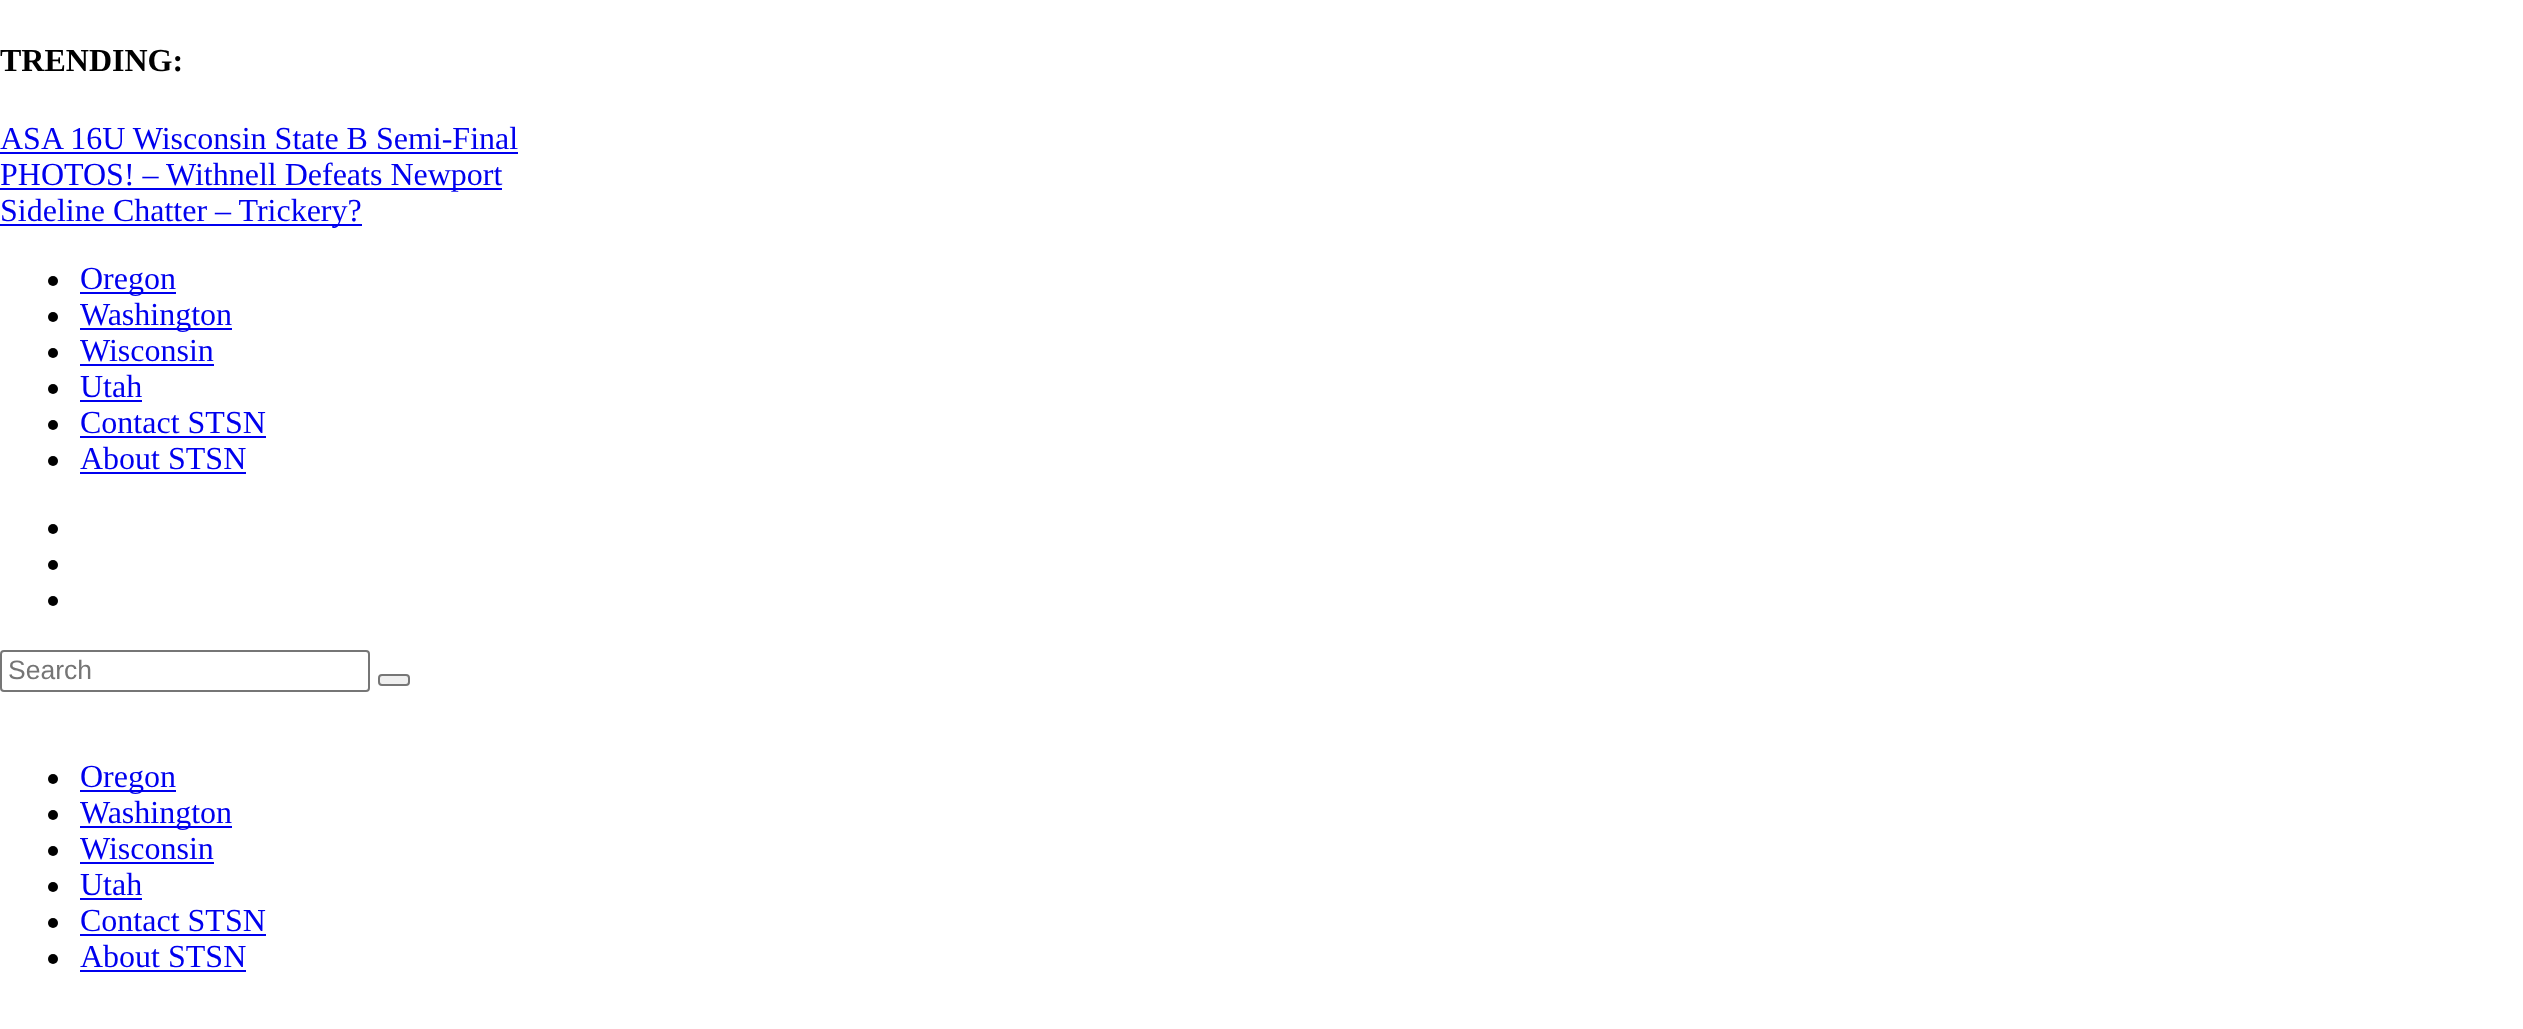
(async () => {
  const canvas = document.querySelector("canvas");
  canvas.width = 2523;
  canvas.height = 1029;
  const ctx = canvas.getContext("2d");
  ctx.miterLimit = 4;
  ctx.fontKerning = "normal";

  ctx.fillStyle = "#ffffff";
  ctx.fillRect(0, 0, 2523, 1029);
  for (const [x, y, w, h, color] of [
    [0, 152, 518, 2, "#0000ee"],
    [0, 188, 502, 2, "#0000ee"],
    [0, 224, 362, 2, "#0000ee"],
  ]) {
    ctx.fillStyle = color;
    ctx.fillRect(x, y, w, h);
  }
  ctx.fillStyle = "#000000";
  ctx.beginPath();
  ctx.arc(53, 281, 5, 0, Math.PI * 2);
  ctx.fill();
  ctx.fillStyle = "#0000ee";
  ctx.fillRect(80, 292, 96, 2);
  ctx.fillStyle = "#000000";
  ctx.beginPath();
  ctx.arc(53, 317, 5, 0, Math.PI * 2);
  ctx.fill();
  ctx.fillStyle = "#0000ee";
  ctx.fillRect(80, 328, 152, 2);
  ctx.fillStyle = "#000000";
  ctx.beginPath();
  ctx.arc(53, 353, 5, 0, Math.PI * 2);
  ctx.fill();
  ctx.fillStyle = "#0000ee";
  ctx.fillRect(80, 364, 134, 2);
  ctx.fillStyle = "#000000";
  ctx.beginPath();
  ctx.arc(53, 389, 5, 0, Math.PI * 2);
  ctx.fill();
  ctx.fillStyle = "#0000ee";
  ctx.fillRect(80, 400, 62, 2);
  ctx.fillStyle = "#000000";
  ctx.beginPath();
  ctx.arc(53, 425, 5, 0, Math.PI * 2);
  ctx.fill();
  ctx.fillStyle = "#0000ee";
  ctx.fillRect(80, 436, 186, 2);
  ctx.fillStyle = "#000000";
  ctx.beginPath();
  ctx.arc(53, 461, 5, 0, Math.PI * 2);
  ctx.fill();
  ctx.fillStyle = "#0000ee";
  ctx.fillRect(80, 472, 166, 2);
  ctx.fillStyle = "#000000";
  ctx.beginPath();
  ctx.arc(53, 529, 5, 0, Math.PI * 2);
  ctx.fill();
  ctx.beginPath();
  ctx.arc(53, 565, 5, 0, Math.PI * 2);
  ctx.fill();
  ctx.beginPath();
  ctx.arc(53, 601, 5, 0, Math.PI * 2);
  ctx.fill();
  ctx.beginPath();
  ctx.roundRect(1, 651, 368, 40, 3);
  ctx.strokeStyle = "#767676";
  ctx.lineWidth = 2;
  ctx.stroke();
  ctx.fillStyle = "#efefef";
  ctx.beginPath();
  ctx.roundRect(379, 675, 30, 10, 3);
  ctx.fill();
  ctx.stroke();
  ctx.fillStyle = "#000000";
  ctx.beginPath();
  ctx.arc(53, 779, 5, 0, Math.PI * 2);
  ctx.fill();
  ctx.fillStyle = "#0000ee";
  ctx.fillRect(80, 790, 96, 2);
  ctx.fillStyle = "#000000";
  ctx.beginPath();
  ctx.arc(53, 815, 5, 0, Math.PI * 2);
  ctx.fill();
  ctx.fillStyle = "#0000ee";
  ctx.fillRect(80, 826, 152, 2);
  ctx.fillStyle = "#000000";
  ctx.beginPath();
  ctx.arc(53, 851, 5, 0, Math.PI * 2);
  ctx.fill();
  ctx.fillStyle = "#0000ee";
  ctx.fillRect(80, 862, 134, 2);
  ctx.fillStyle = "#000000";
  ctx.beginPath();
  ctx.arc(53, 887, 5, 0, Math.PI * 2);
  ctx.fill();
  ctx.fillStyle = "#0000ee";
  ctx.fillRect(80, 898, 62, 2);
  ctx.fillStyle = "#000000";
  ctx.beginPath();
  ctx.arc(53, 923, 5, 0, Math.PI * 2);
  ctx.fill();
  ctx.fillStyle = "#0000ee";
  ctx.fillRect(80, 934, 186, 2);
  ctx.fillStyle = "#000000";
  ctx.beginPath();
  ctx.arc(53, 959, 5, 0, Math.PI * 2);
  ctx.fill();
  ctx.fillStyle = "#0000ee";
  ctx.fillRect(80, 970, 166, 2);
  ctx.font = "bold 32px Liberation Serif";
  ctx.fillStyle = "#000000";
  ctx.fillText("TRENDING:", 0, 71);
  ctx.font = "32px Liberation Serif";
  ctx.fillStyle = "#0000ee";
  for (const [text, x, y] of [
    ["ASA 16U Wisconsin State B Semi-Final", 0, 149],
    ["PHOTOS! – Withnell Defeats Newport", 0, 185],
    ["Sideline Chatter – Trickery?", 0, 221],
    ["Oregon", 80, 289],
    ["Washington", 80, 325],
    ["Wisconsin", 80, 361],
    ["Utah", 80, 397],
    ["Contact STSN", 80, 433],
    ["About STSN", 80, 469],
  ]) {
    ctx.fillText(text, x, y);
  }
  ctx.font = "26.5px Liberation Sans";
  ctx.fillStyle = "#757575";
  ctx.fillText("Search", 8, 679);
  ctx.font = "32px Liberation Serif";
  ctx.fillStyle = "#0000ee";
  for (const [text, x, y] of [
    ["Oregon", 80, 787],
    ["Washington", 80, 823],
    ["Wisconsin", 80, 859],
    ["Utah", 80, 895],
    ["Contact STSN", 80, 931],
    ["About STSN", 80, 967],
  ]) {
    ctx.fillText(text, x, y);
  }
})();
